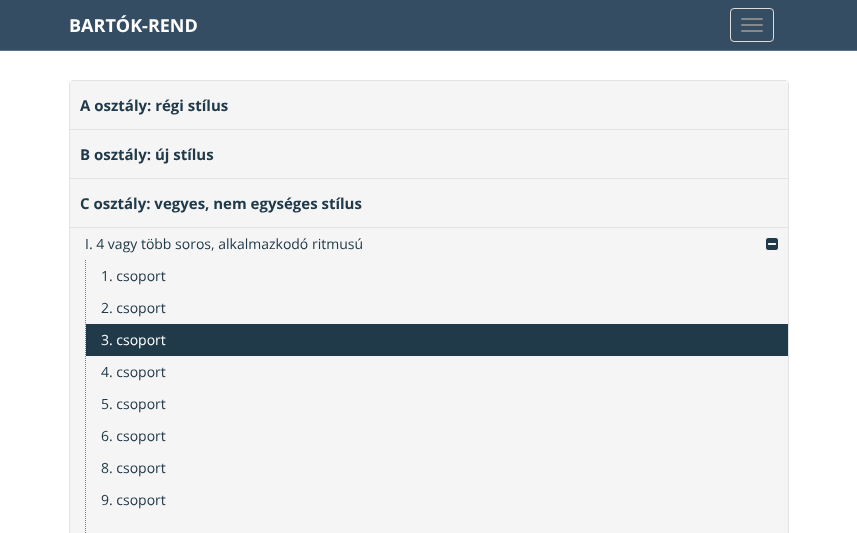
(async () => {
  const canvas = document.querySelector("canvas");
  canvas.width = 857;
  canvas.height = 533;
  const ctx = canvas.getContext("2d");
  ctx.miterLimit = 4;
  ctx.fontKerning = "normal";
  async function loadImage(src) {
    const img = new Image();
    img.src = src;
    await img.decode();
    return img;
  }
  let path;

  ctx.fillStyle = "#ffffff";
  ctx.fillRect(0, 0, 857, 533);
  ctx.fillStyle = "#354d62";
  ctx.fillRect(0, 0, 857, 50);
  ctx.fillStyle = "#59748c";
  ctx.fillRect(0, 50, 857, 1);
  ctx.beginPath();
  ctx.roundRect(730.5, 8.5, 43, 33, 3.5);
  ctx.strokeStyle = "#dddddd";
  ctx.stroke();
  ctx.fillStyle = "#888888";
  ctx.beginPath();
  ctx.roundRect(741, 18, 22, 2, 1);
  ctx.fill();
  ctx.beginPath();
  ctx.roundRect(741, 24, 22, 2, 1);
  ctx.fill();
  ctx.beginPath();
  ctx.roundRect(741, 30, 22, 2, 1);
  ctx.fill();
  ctx.fillStyle = "#f5f5f5";
  ctx.beginPath();
  ctx.roundRect(69.5, 80.5, 719, 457, 3.5);
  ctx.fill();
  ctx.strokeStyle = "#e3e3e3";
  ctx.stroke();
  for (const [x, y, w, h, color] of [
    [70, 81, 718, 2, "#f5f5f5"],
    [70, 129, 718, 1, "#e3e3e3"],
    [70, 178, 718, 1, "#e3e3e3"],
    [70, 227, 718, 1, "#e3e3e3"],
  ]) {
    ctx.fillStyle = color;
    ctx.fillRect(x, y, w, h);
  }
  ctx.drawImage(await loadImage("img/1.png"), 766, 238, 12, 12);
  path = new Path2D("M85.5 260V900");
  ctx.strokeStyle = "#7b7b7b";
  ctx.setLineDash([1, 1]);
  ctx.stroke(path);
  ctx.fillStyle = "#213a49";
  ctx.fillRect(86, 324, 702, 32);
  ctx.font = "bold 18px Open Sans";
  ctx.fillStyle = "#ffffff";
  ctx.fillText("BARTÓK-REND", 69, 32);
  ctx.font = "bold 15px Open Sans";
  ctx.fillStyle = "#213a49";
  for (const [text, x, y] of [
    ["A osztály: régi stílus", 80, 111],
    ["B osztály: új stílus", 80, 160],
    ["C osztály: vegyes, nem egységes stílus", 80, 209],
  ]) {
    ctx.fillText(text, x, y);
  }
  ctx.font = "14px Open Sans";
  for (const [text, x, y] of [
    ["I. 4 vagy több soros, alkalmazkodó ritmusú", 85, 249],
    ["1. csoport", 101, 281],
    ["2. csoport", 101, 313],
  ]) {
    ctx.fillText(text, x, y);
  }
  ctx.fillStyle = "#ffffff";
  ctx.fillText("3. csoport", 101, 345);
  ctx.fillStyle = "#213a49";
  for (const [text, x, y] of [
    ["4. csoport", 101, 377],
    ["5. csoport", 101, 409],
    ["6. csoport", 101, 441],
    ["8. csoport", 101, 473],
    ["9. csoport", 101, 505],
  ]) {
    ctx.fillText(text, x, y);
  }
})();
